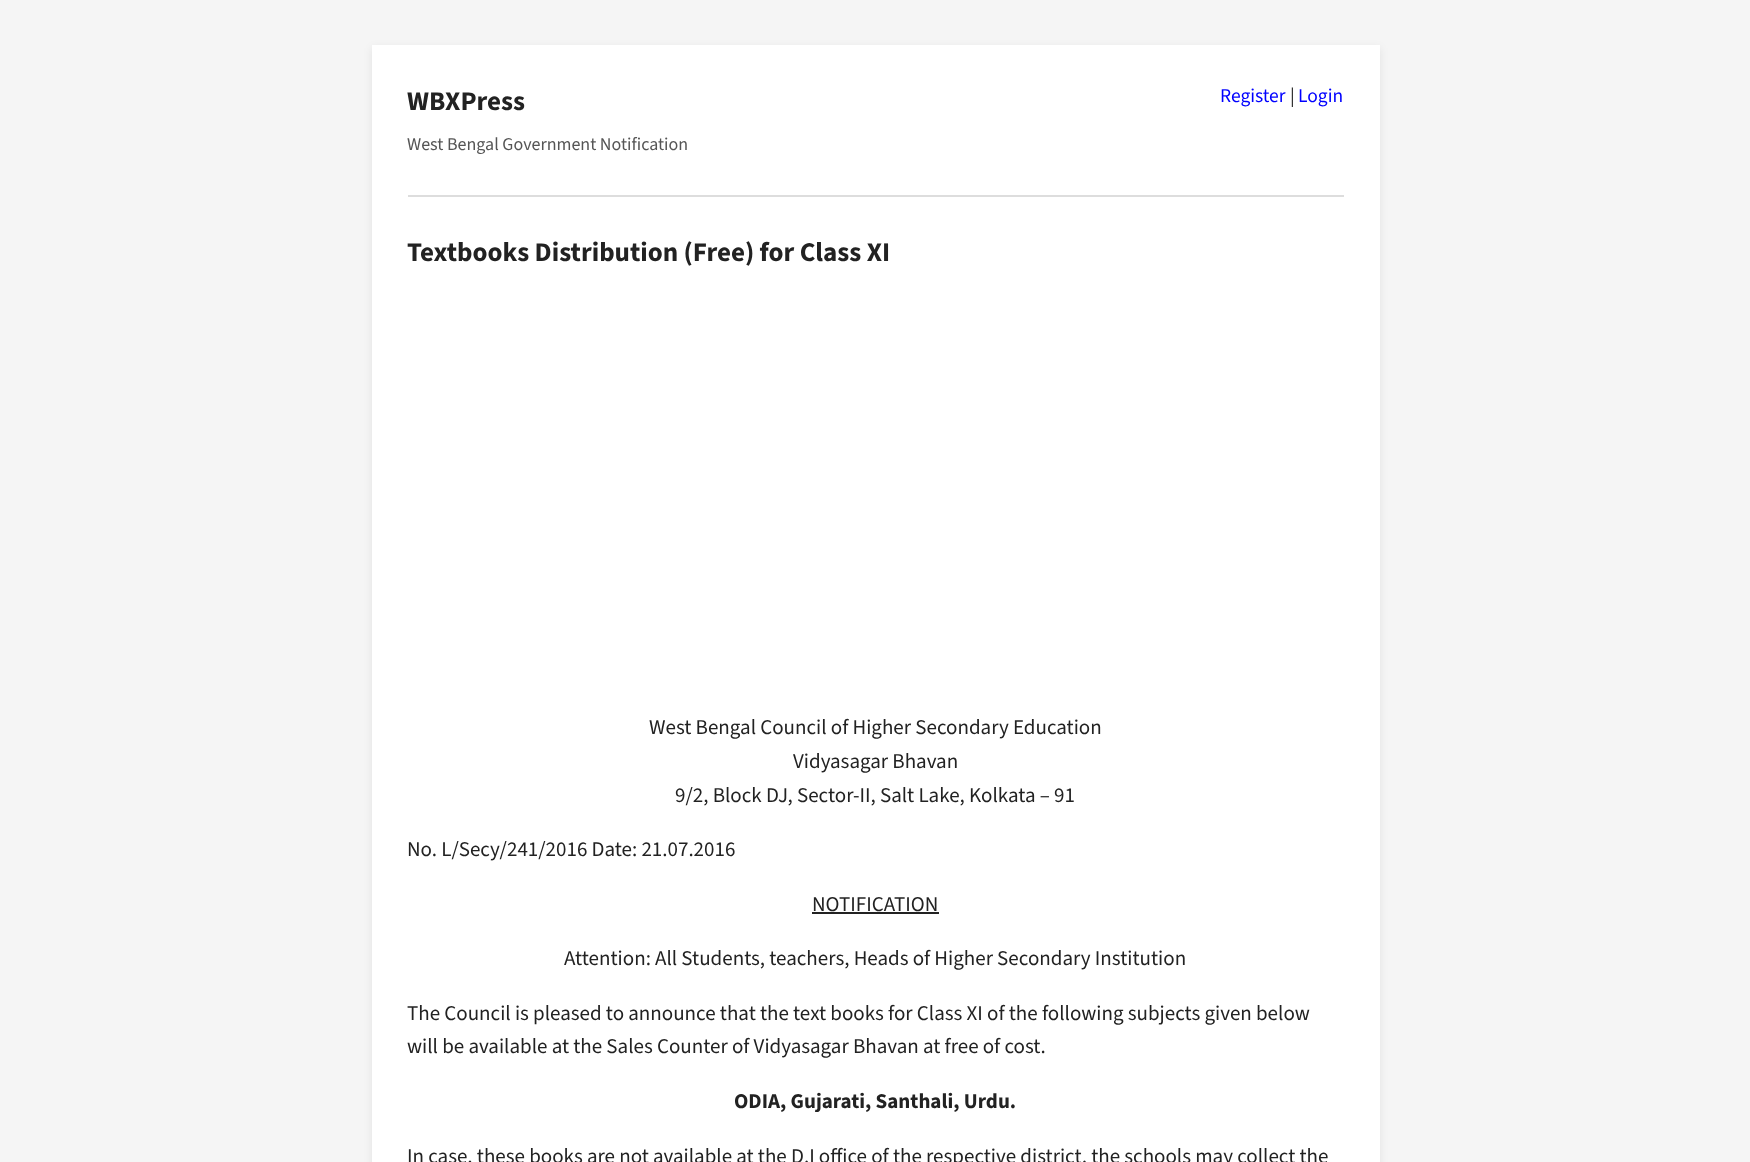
(async () => {
  const canvas = document.querySelector("canvas");
  canvas.width = 1750;
  canvas.height = 1162;
  const ctx = canvas.getContext("2d");
  ctx.miterLimit = 4;
  ctx.fontKerning = "normal";

  ctx.fillStyle = "#f5f5f5";
  ctx.fillRect(0, 0, 1750, 1162);
  ctx.fillStyle = "rgba(0, 0, 0, 0.08)";
  ctx.filter = "blur(4.5px)";
  ctx.beginPath();
  ctx.rect(372, 48, 1008, 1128);
  ctx.fill();
  ctx.filter = "none";
  for (const [x, y, w, h, color] of [
    [372, 45, 1008, 1117, "#ffffff"],
    [408, 195, 936, 2, "#dddddd"],
    [812, 912, 127, 2, "#222222"],
  ]) {
    ctx.fillStyle = color;
    ctx.fillRect(x, y, w, h);
  }
  ctx.font = "200 27px 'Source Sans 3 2'";
  ctx.fillText("WBXPress", 407, 110);
  ctx.font = "200 18px 'Source Sans 3'";
  ctx.fillStyle = "#555555";
  ctx.fillText("West Bengal Government Notification", 407, 150);
  ctx.font = "200 19.5px 'Source Sans 3'";
  ctx.fillStyle = "#0000ff";
  ctx.fillText("Register", 1220, 102);
  ctx.fillStyle = "#222222";
  ctx.fillText("|", 1290, 102);
  ctx.fillStyle = "#0000ff";
  ctx.fillText("Login", 1298, 102);
  ctx.font = "200 27px 'Source Sans 3 2'";
  ctx.fillStyle = "#222222";
  ctx.fillText("Textbooks Distribution (Free) for Class XI", 407, 261);
  ctx.font = "200 21px 'Source Sans 3'";
  for (const [text, x, y] of [
    ["West Bengal Council of Higher Secondary Education", 649, 734],
    ["Vidyasagar Bhavan", 793, 768],
    ["9/2, Block DJ, Sector-II, Salt Lake, Kolkata – 91", 675, 802],
    ["No. L/Secy/241/2016 Date: 21.07.2016", 407, 856],
    ["NOTIFICATION", 812, 911],
    ["Attention: All Students, teachers, Heads of Higher Secondary Institution", 564, 965],
    ["The Council is pleased to announce that the text books for Class XI of the following subjects given below", 407, 1020],
    ["will be available at the Sales Counter of Vidyasagar Bhavan at free of cost.", 407, 1053],
  ]) {
    ctx.fillText(text, x, y);
  }
  ctx.font = "200 21px 'Source Sans 3 2'";
  ctx.fillText("ODIA, Gujarati, Santhali, Urdu.", 734, 1108);
  ctx.font = "200 21px 'Source Sans 3'";
  ctx.fillText("In case, these books are not available at the D.I office of the respective district, the schools may collect the", 407, 1163);
})();
